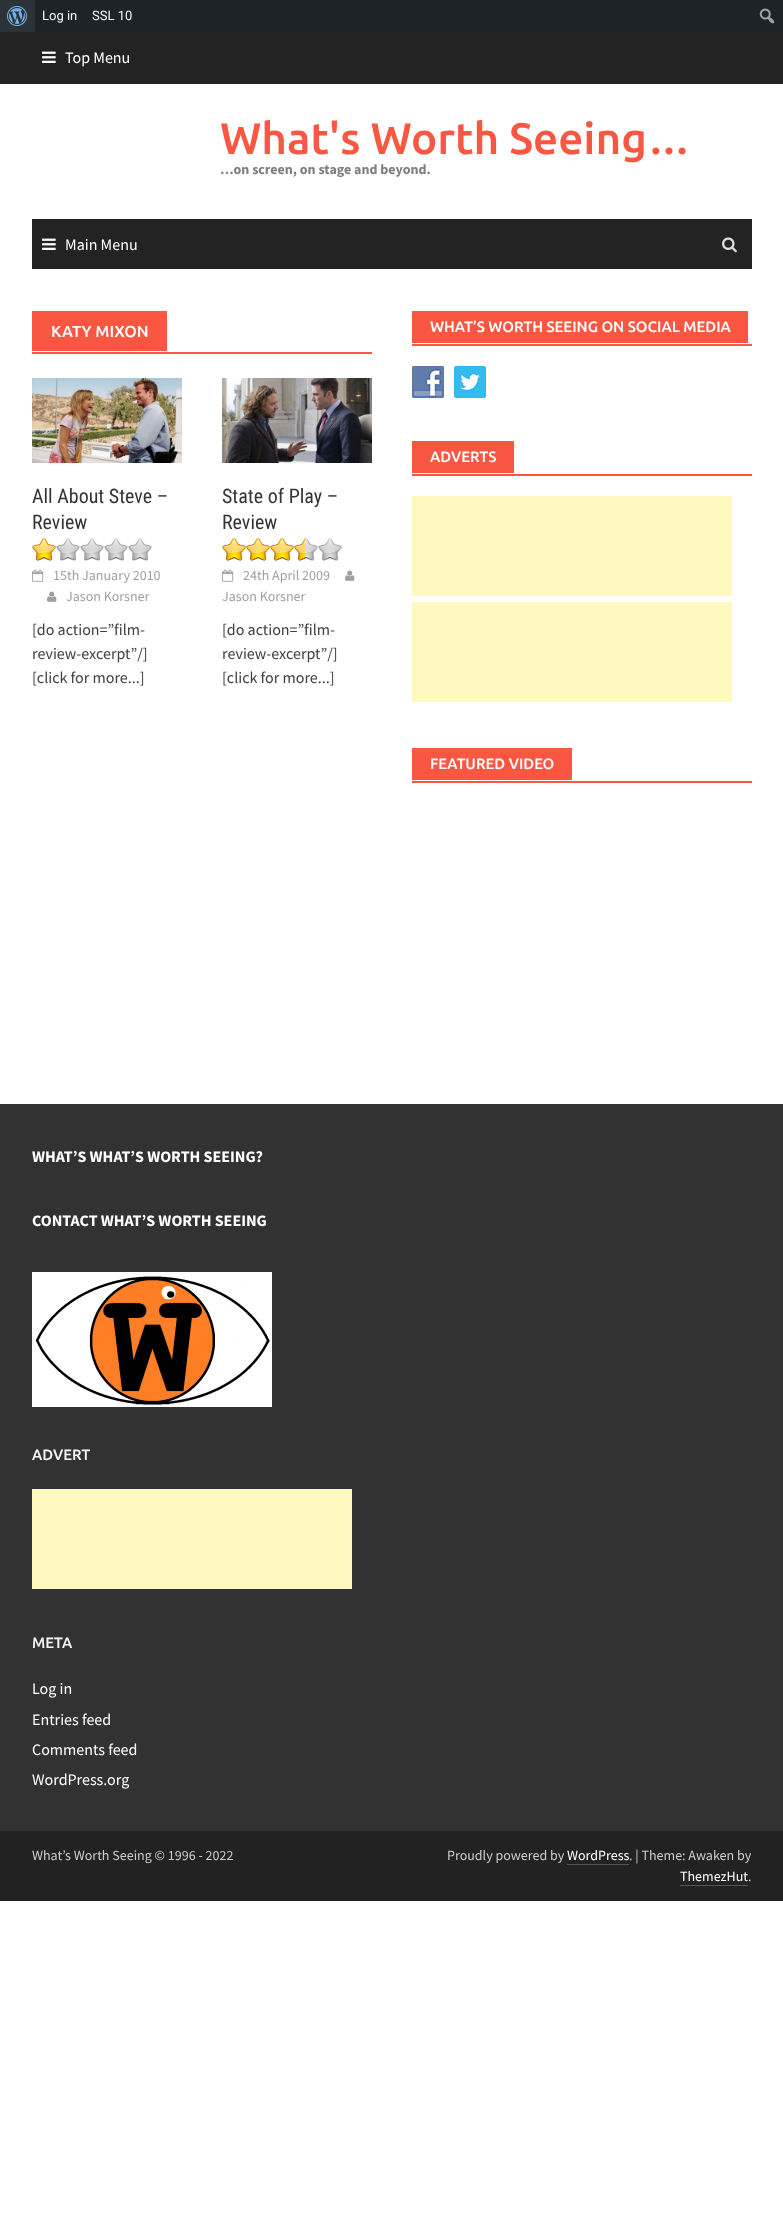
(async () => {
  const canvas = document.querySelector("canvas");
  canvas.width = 783;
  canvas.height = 2226;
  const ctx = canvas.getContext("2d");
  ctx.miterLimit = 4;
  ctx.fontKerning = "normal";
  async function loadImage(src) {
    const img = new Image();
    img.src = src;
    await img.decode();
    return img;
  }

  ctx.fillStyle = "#ffffff";
  ctx.fillRect(0, 0, 783, 2226);
  ctx.fillStyle = "#1d2327";
  ctx.fillRect(35, 0, 748, 32);
  ctx.fillStyle = "#2c3338";
  ctx.fillRect(0, 0, 35, 32);
  ctx.drawImage(await loadImage("img/1.png"), 7, 6, 20, 20);
  ctx.drawImage(await loadImage("img/2.png"), 759, 8, 16, 16);
  ctx.fillStyle = "#232323";
  ctx.fillRect(0, 32, 783, 52);
  ctx.drawImage(await loadImage("img/3.png"), 42, 51, 14, 12);
  ctx.fillRect(32, 219, 720, 50);
  ctx.drawImage(await loadImage("img/3.png"), 42, 238, 14, 12);
  ctx.drawImage(await loadImage("img/4.png"), 722, 237, 15, 16);
  ctx.fillStyle = "#fa5742";
  ctx.fillRect(32, 352, 340, 2);
  ctx.fillRect(32, 311, 135, 40);
  ctx.drawImage(await loadImage("img/5.png"), 32, 378, 150, 85);
  ctx.drawImage(await loadImage("img/6.png"), 32, 538, 120, 23);
  ctx.drawImage(await loadImage("img/7.png"), 32, 538, 24, 23);
  ctx.drawImage(await loadImage("img/8.png"), 32, 569, 12, 13);
  ctx.drawImage(await loadImage("img/9.png"), 47, 591, 10, 11);
  ctx.drawImage(await loadImage("img/10.png"), 222, 378, 150, 85);
  ctx.drawImage(await loadImage("img/6.png"), 222, 538, 120, 23);
  ctx.drawImage(await loadImage("img/11.png"), 222, 538, 84, 23);
  ctx.drawImage(await loadImage("img/8.png"), 222, 569, 12, 13);
  ctx.drawImage(await loadImage("img/9.png"), 345, 570, 10, 11);
  ctx.fillRect(412, 344, 340, 2);
  ctx.fillRect(412, 311, 336, 32);
  ctx.drawImage(await loadImage("img/12.png"), 412, 366, 32, 32);
  ctx.drawImage(await loadImage("img/13.png"), 454, 366, 32, 32);
  for (const [x, y, w, h, color] of [
    [412, 474, 340, 2, "#fa5742"],
    [412, 441, 102, 32, "#fa5742"],
    [412, 496, 320, 100, "#fff9c0"],
    [412, 602, 320, 100, "#fff9c0"],
    [412, 781, 340, 2, "#fa5742"],
    [412, 748, 160, 32, "#fa5742"],
    [0, 1104, 783, 727, "#323232"],
  ]) {
    ctx.fillStyle = color;
    ctx.fillRect(x, y, w, h);
  }
  ctx.drawImage(await loadImage("img/14.png"), 32, 1272, 240, 135);
  for (const [x, y, w, h, color] of [
    [32, 1489, 320, 100, "#fff9c0"],
    [0, 1831, 783, 70, "#222222"],
    [567, 1864, 62, 1, "#555555"],
    [680, 1885, 68, 1, "#555555"],
  ]) {
    ctx.fillStyle = color;
    ctx.fillRect(x, y, w, h);
  }
  ctx.font = "13px Roboto";
  ctx.fillStyle = "#f5f5f5";
  ctx.fillText("Log in", 42, 20);
  ctx.fillText("SSL 10", 92, 20);
  ctx.font = "16px Source Sans Pro";
  ctx.fillStyle = "#ffffff";
  ctx.fillText("Top Menu", 65, 63);
  ctx.font = "500 44px Ubuntu";
  ctx.fillStyle = "#fa5742";
  ctx.fillText("What's Worth Seeing…", 220, 154);
  ctx.font = "bold 14px Source Sans Pro";
  ctx.fillStyle = "#7e7e7e";
  ctx.fillText("…on screen, on stage and beyond.", 220, 174);
  ctx.font = "16px Source Sans Pro";
  ctx.fillStyle = "#ffffff";
  ctx.fillText("Main Menu", 65, 250);
  ctx.font = "500 16px Ubuntu";
  ctx.fillText("KATY MIXON", 51, 337);
  ctx.font = "20px Roboto Condensed";
  ctx.fillStyle = "#353434";
  ctx.fillText("All About Steve –", 32, 503);
  ctx.fillText("Review", 32, 529);
  ctx.font = "14px Source Sans Pro";
  ctx.fillStyle = "#9f9f9f";
  ctx.fillText("15th January 2010", 53, 580);
  ctx.fillText("Jason Korsner", 66, 601);
  ctx.font = "16px Source Sans Pro";
  ctx.fillStyle = "#404040";
  for (const [text, x, y] of [
    ["[do action=”film-", 32, 635],
    ["review-excerpt”/]", 32, 659],
    ["[click for more...]", 32, 683],
  ]) {
    ctx.fillText(text, x, y);
  }
  ctx.font = "20px Roboto Condensed";
  ctx.fillStyle = "#353434";
  ctx.fillText("State of Play –", 222, 503);
  ctx.fillText("Review", 222, 529);
  ctx.font = "14px Source Sans Pro";
  ctx.fillStyle = "#9f9f9f";
  ctx.fillText("24th April 2009", 243, 580);
  ctx.fillText("Jason Korsner", 222, 601);
  ctx.font = "16px Source Sans Pro";
  ctx.fillStyle = "#404040";
  for (const [text, x, y] of [
    ["[do action=”film-", 222, 635],
    ["review-excerpt”/]", 222, 659],
    ["[click for more...]", 222, 683],
  ]) {
    ctx.fillText(text, x, y);
  }
  ctx.font = "500 15px Ubuntu";
  ctx.fillStyle = "#ffffff";
  for (const [text, x, y] of [
    ["WHAT’S WORTH SEEING ON SOCIAL MEDIA", 430, 332],
    ["ADVERTS", 430, 462],
    ["FEATURED VIDEO", 430, 769],
  ]) {
    ctx.fillText(text, x, y);
  }
  ctx.font = "bold 16px Source Sans Pro";
  ctx.fillText("WHAT’S WHAT’S WORTH SEEING?", 32, 1162);
  ctx.fillText("CONTACT WHAT’S WORTH SEEING", 32, 1226);
  ctx.font = "500 15px Ubuntu";
  ctx.fillStyle = "#f5f5f5";
  ctx.fillText("ADVERT", 32, 1460);
  ctx.fillText("META", 32, 1648);
  ctx.font = "16px Source Sans Pro";
  ctx.fillStyle = "#ffffff";
  for (const [text, x, y] of [
    ["Log in", 32, 1694],
    ["Entries feed", 32, 1725],
    ["Comments feed", 32, 1755],
    ["WordPress.org", 32, 1785],
  ]) {
    ctx.fillText(text, x, y);
  }
  ctx.font = "14px Source Sans Pro";
  ctx.fillStyle = "#cccccc";
  ctx.fillText("What’s Worth Seeing © 1996 - 2022", 32, 1860);
  ctx.fillText("Proudly powered by", 447, 1860);
  ctx.fillStyle = "#ffffff";
  ctx.fillText("WordPress", 567, 1860);
  ctx.fillStyle = "#cccccc";
  ctx.fillText(". | Theme: Awaken by", 629, 1860);
  ctx.fillStyle = "#ffffff";
  ctx.fillText("ThemezHut", 680, 1881);
  ctx.fillStyle = "#cccccc";
  ctx.fillText(".", 748, 1881);
})();
